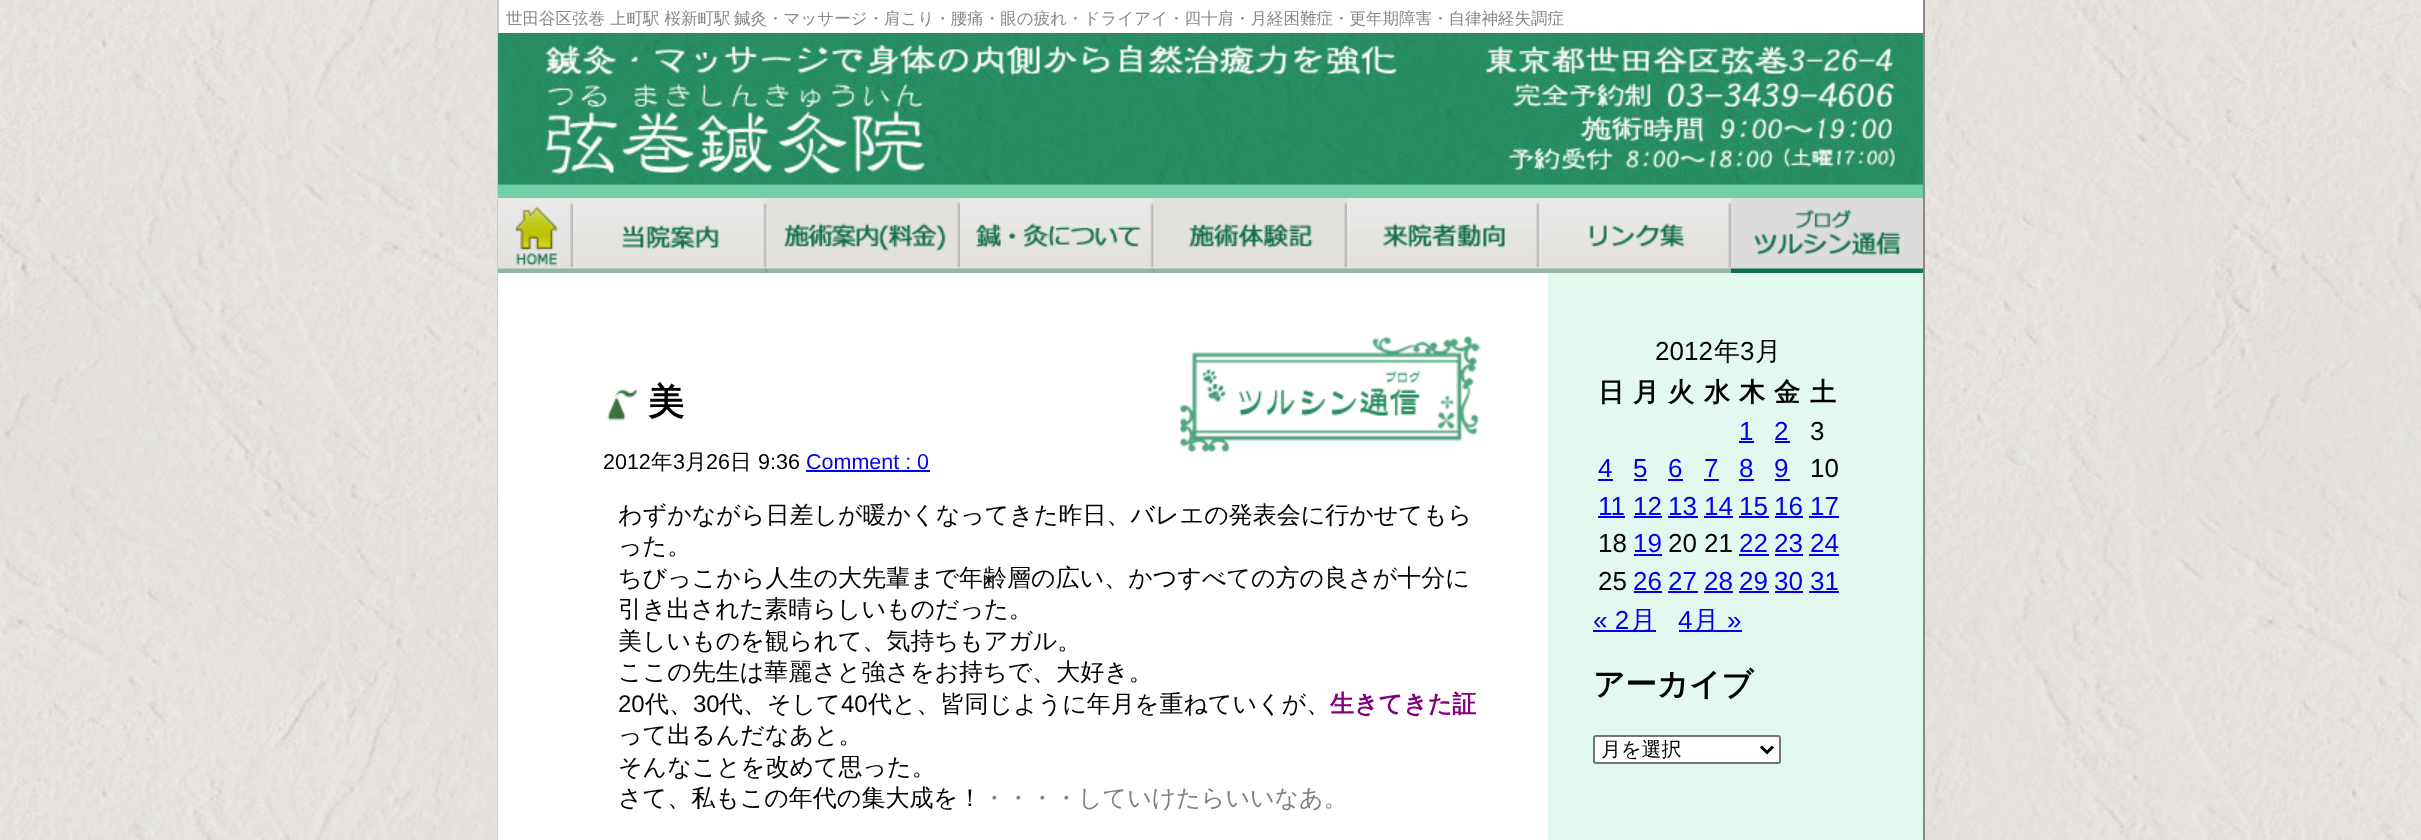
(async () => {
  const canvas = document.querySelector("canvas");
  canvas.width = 2421;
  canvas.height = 840;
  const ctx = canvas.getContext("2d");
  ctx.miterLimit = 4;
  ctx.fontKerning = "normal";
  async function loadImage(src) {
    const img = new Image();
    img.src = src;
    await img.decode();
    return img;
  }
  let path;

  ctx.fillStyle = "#ffffff";
  ctx.fillRect(0, 0, 2421, 840);
  ctx.drawImage(await loadImage("img/1.png"), 0, 0, 2421, 840);
  for (const [x, y, w, h, color] of [
    [499, 0, 1424, 840, "#ffffff"],
    [1923, 0, 2, 840, "#888888"],
    [497, 0, 2, 840, "#cccccc"],
    [498, 184, 1425, 14, "#70cfa8"],
  ]) {
    ctx.fillStyle = color;
    ctx.fillRect(x, y, w, h);
  }
  ctx.drawImage(await loadImage("img/2.png"), 498, 33, 1425, 152);
  ctx.drawImage(await loadImage("img/3.png"), 498, 198, 75, 75);
  ctx.drawImage(await loadImage("img/4.png"), 766, 198, 1, 75);
  ctx.drawImage(await loadImage("img/5.png"), 573, 198, 194, 75);
  ctx.drawImage(await loadImage("img/6.png"), 766, 198, 1, 75);
  ctx.drawImage(await loadImage("img/7.png"), 766, 198, 194, 75);
  ctx.drawImage(await loadImage("img/8.png"), 1153, 198, 1, 75);
  ctx.drawImage(await loadImage("img/9.png"), 960, 198, 194, 75);
  ctx.drawImage(await loadImage("img/10.png"), 1153, 198, 1, 75);
  ctx.drawImage(await loadImage("img/11.png"), 1153, 198, 194, 75);
  ctx.drawImage(await loadImage("img/12.png"), 1347, 198, 192, 75);
  ctx.drawImage(await loadImage("img/13.png"), 1539, 198, 192, 75);
  ctx.drawImage(await loadImage("img/14.png"), 1731, 198, 192, 75);
  ctx.fillStyle = "#ffffff";
  ctx.fillRect(498, 273, 1, 567);
  ctx.drawImage(await loadImage("img/15.png"), 1180, 335, 301, 117);
  ctx.drawImage(await loadImage("img/16.png"), 607, 389, 31, 32);
  for (const [x, y, w, h, color] of [
    [806, 470, 124, 2, "#0000ee"],
    [1548, 273, 375, 567, "#e1f9ef"],
    [1739, 441, 15, 2, "#0000ee"],
    [1775, 441, 15, 2, "#0000ee"],
    [1598, 479, 15, 2, "#0000ee"],
    [1634, 479, 13, 2, "#0000ee"],
    [1668, 479, 15, 2, "#0000ee"],
    [1704, 479, 15, 2, "#0000ee"],
    [1739, 479, 15, 2, "#0000ee"],
    [1775, 479, 15, 2, "#0000ee"],
    [1598, 516, 27, 2, "#0000ee"],
    [1634, 516, 28, 2, "#0000ee"],
    [1668, 516, 30, 2, "#0000ee"],
    [1704, 516, 29, 2, "#0000ee"],
    [1739, 516, 30, 2, "#0000ee"],
    [1775, 516, 28, 2, "#0000ee"],
    [1809, 516, 30, 2, "#0000ee"],
    [1634, 554, 28, 2, "#0000ee"],
    [1739, 554, 30, 2, "#0000ee"],
    [1775, 554, 28, 2, "#0000ee"],
    [1809, 554, 30, 2, "#0000ee"],
    [1634, 591, 28, 2, "#0000ee"],
    [1668, 591, 30, 2, "#0000ee"],
    [1704, 591, 29, 2, "#0000ee"],
    [1739, 591, 30, 2, "#0000ee"],
    [1775, 591, 28, 2, "#0000ee"],
    [1809, 591, 30, 2, "#0000ee"],
    [1593, 630, 63, 2, "#0000ee"],
    [1679, 630, 63, 2, "#0000ee"],
  ]) {
    ctx.fillStyle = color;
    ctx.fillRect(x, y, w, h);
  }
  ctx.fillStyle = "#ffffff";
  ctx.beginPath();
  ctx.roundRect(1594, 736, 186, 27, 2);
  ctx.fill();
  ctx.strokeStyle = "#767676";
  ctx.lineWidth = 2;
  ctx.stroke();
  path = new Path2D("M1761 746.5L1767 752.5L1773 746.5");
  ctx.strokeStyle = "#000000";
  ctx.lineWidth = 3;
  ctx.stroke(path);
  ctx.font = "500 16.5px WenQuanYi Zen Hei";
  ctx.fillStyle = "#888888";
  ctx.fillText("世田谷区弦巻 上町駅 桜新町駅", 506, 24);
  ctx.fillText("鍼灸・マッサージ・肩こり・腰痛・眼の疲れ・ドライアイ・四十肩・月経困難症・更年期障害・自律神経失調症", 734, 24);
  ctx.font = "bold 36px WenQuanYi Zen Hei";
  ctx.fillStyle = "#000000";
  ctx.fillText("美", 648, 414);
  ctx.font = "21.5px Liberation Sans";
  ctx.fillText("2012", 603, 469);
  ctx.font = "500 21.5px WenQuanYi Zen Hei";
  ctx.fillText("年", 651, 469);
  ctx.font = "21.5px Liberation Sans";
  ctx.fillText("3", 673, 469);
  ctx.font = "500 21.5px WenQuanYi Zen Hei";
  ctx.fillText("月", 685, 469);
  ctx.font = "21.5px Liberation Sans";
  ctx.fillText("26", 706, 469);
  ctx.font = "500 21.5px WenQuanYi Zen Hei";
  ctx.fillText("日", 730, 469);
  ctx.font = "21.5px Liberation Sans";
  ctx.fillText("9:36", 758, 469);
  ctx.fillStyle = "#0000ee";
  ctx.fillText("Comment : 0", 806, 469);
  ctx.font = "500 24px WenQuanYi Zen Hei";
  ctx.fillStyle = "#000000";
  for (const [text, x, y] of [
    ["わずかながら日差しが暖かくなってきた昨日、バレエの発表会に行かせてもら", 618, 523],
    ["った。", 618, 554],
    ["ちびっこから人生の大先輩まで年齢層の広い、かつすべての方の良さが十分に", 618, 586],
    ["引き出された素晴らしいものだった。", 618, 617],
    ["美しいものを観られて、気持ちもアガル。", 618, 649],
    ["ここの先生は華麗さと強さをお持ちで、大好き。", 618, 680],
  ]) {
    ctx.fillText(text, x, y);
  }
  ctx.font = "24px Liberation Sans";
  ctx.fillText("20", 618, 712);
  ctx.font = "500 24px WenQuanYi Zen Hei";
  ctx.fillText("代、", 645, 712);
  ctx.font = "24px Liberation Sans";
  ctx.fillText("30", 693, 712);
  ctx.font = "500 24px WenQuanYi Zen Hei";
  ctx.fillText("代、そして", 719, 712);
  ctx.font = "24px Liberation Sans";
  ctx.fillText("40", 841, 712);
  ctx.font = "500 24px WenQuanYi Zen Hei";
  ctx.fillText("代と、皆同じように年月を重ねていくが、", 868, 712);
  ctx.font = "bold 24px WenQuanYi Zen Hei";
  ctx.fillStyle = "#800080";
  ctx.fillText("生きてきた証", 1330, 712);
  ctx.font = "500 24px WenQuanYi Zen Hei";
  ctx.fillStyle = "#000000";
  for (const [text, x, y] of [
    ["って出るんだなあと。", 618, 743],
    ["そんなことを改めて思った。", 618, 775],
    ["さて、私もこの年代の集大成を！", 618, 806],
  ]) {
    ctx.fillText(text, x, y);
  }
  ctx.fillStyle = "#808080";
  ctx.fillText("・・・・していけたらいいなあ。", 982, 806);
  ctx.font = "26px Liberation Sans";
  ctx.fillStyle = "#000000";
  ctx.fillText("2012", 1655, 360);
  ctx.font = "500 26px WenQuanYi Zen Hei";
  ctx.fillText("年", 1714, 360);
  ctx.font = "26px Liberation Sans";
  ctx.fillText("3", 1740, 360);
  ctx.font = "500 26px WenQuanYi Zen Hei";
  ctx.fillText("月", 1755, 360);
  ctx.font = "bold 26px WenQuanYi Zen Hei";
  for (const [text, x, y] of [
    ["日", 1598, 401],
    ["月", 1633, 401],
    ["火", 1668, 401],
    ["水", 1704, 401],
    ["木", 1739, 401],
    ["金", 1774, 401],
    ["土", 1810, 401],
  ]) {
    ctx.fillText(text, x, y);
  }
  ctx.font = "26px Liberation Sans";
  ctx.fillStyle = "#0000ee";
  ctx.fillText("1", 1739, 440);
  ctx.fillText("2", 1774, 440);
  ctx.fillStyle = "#000000";
  ctx.fillText("3", 1810, 440);
  ctx.fillStyle = "#0000ee";
  for (const [text, x, y] of [
    ["4", 1598, 477],
    ["5", 1633, 477],
    ["6", 1668, 477],
    ["7", 1704, 477],
    ["8", 1739, 477],
    ["9", 1774, 477],
  ]) {
    ctx.fillText(text, x, y);
  }
  ctx.fillStyle = "#000000";
  ctx.fillText("10", 1810, 477);
  ctx.fillStyle = "#0000ee";
  for (const [text, x, y] of [
    ["11", 1598, 515],
    ["12", 1633, 515],
    ["13", 1668, 515],
    ["14", 1704, 515],
    ["15", 1739, 515],
    ["16", 1774, 515],
    ["17", 1810, 515],
  ]) {
    ctx.fillText(text, x, y);
  }
  ctx.fillStyle = "#000000";
  ctx.fillText("18", 1598, 552);
  ctx.fillStyle = "#0000ee";
  ctx.fillText("19", 1633, 552);
  ctx.fillStyle = "#000000";
  ctx.fillText("20", 1668, 552);
  ctx.fillText("21", 1704, 552);
  ctx.fillStyle = "#0000ee";
  for (const [text, x, y] of [
    ["22", 1739, 552],
    ["23", 1774, 552],
    ["24", 1810, 552],
  ]) {
    ctx.fillText(text, x, y);
  }
  ctx.fillStyle = "#000000";
  ctx.fillText("25", 1598, 590);
  ctx.fillStyle = "#0000ee";
  for (const [text, x, y] of [
    ["26", 1633, 590],
    ["27", 1668, 590],
    ["28", 1704, 590],
    ["29", 1739, 590],
    ["30", 1774, 590],
    ["31", 1810, 590],
    ["« 2", 1593, 629],
  ]) {
    ctx.fillText(text, x, y);
  }
  ctx.font = "500 26px WenQuanYi Zen Hei";
  ctx.fillText("月", 1630, 629);
  ctx.font = "26px Liberation Sans";
  ctx.fillText("4", 1678, 629);
  ctx.font = "500 26px WenQuanYi Zen Hei";
  ctx.fillText("月", 1693, 629);
  ctx.font = "26px Liberation Sans";
  ctx.fillText("»", 1727, 629);
  ctx.font = "bold 31.5px WenQuanYi Zen Hei";
  ctx.fillStyle = "#000000";
  ctx.fillText("アーカイブ", 1593, 695);
  ctx.font = "500 20px WenQuanYi Zen Hei";
  ctx.fillText("月を選択", 1601, 756);
})();
